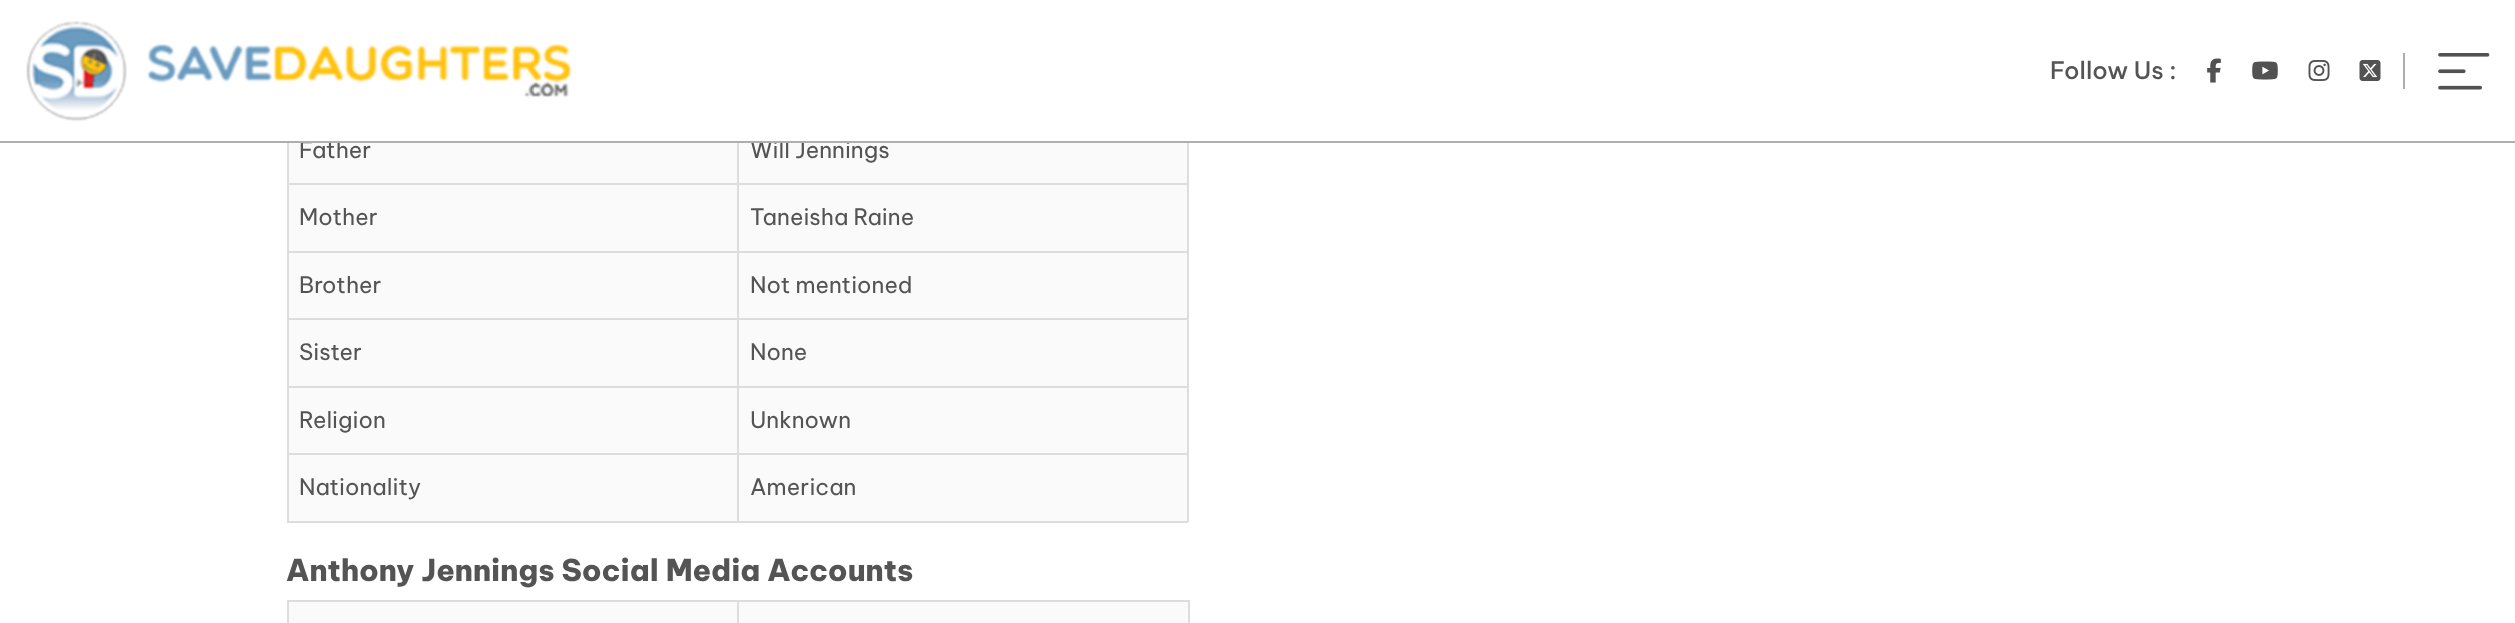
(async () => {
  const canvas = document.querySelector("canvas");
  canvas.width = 2515;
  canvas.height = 623;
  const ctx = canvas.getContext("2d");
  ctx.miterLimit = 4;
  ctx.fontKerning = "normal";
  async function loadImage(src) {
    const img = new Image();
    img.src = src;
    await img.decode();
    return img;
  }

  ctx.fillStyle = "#ffffff";
  ctx.fillRect(0, 0, 2515, 623);
  ctx.drawImage(await loadImage("img/1.png"), 26, 21, 546, 101);
  ctx.fillStyle = "#aeaeae";
  ctx.fillRect(2403, 53, 2, 36);
  ctx.drawImage(await loadImage("img/2.png"), 2207, 58, 14, 25);
  ctx.drawImage(await loadImage("img/3.png"), 2252, 61, 26, 19);
  ctx.drawImage(await loadImage("img/4.png"), 2308, 60, 22, 21);
  ctx.drawImage(await loadImage("img/5.png"), 2359, 60, 22, 21);
  ctx.drawImage(await loadImage("img/6.png"), 2438, 53, 52, 37);
  for (const [x, y, w, h, color] of [
    [289, 143, 448, 40, "#fafafa"],
    [739, 143, 448, 40, "#fafafa"],
    [737, 183, 451, 2, "#dddddd"],
    [737, 251, 451, 2, "#dddddd"],
    [737, 318, 451, 2, "#dddddd"],
    [737, 386, 451, 2, "#dddddd"],
    [737, 453, 451, 2, "#dddddd"],
    [1187, 453, 2, 69, "#dddddd"],
    [737, 521, 451, 2, "#dddddd"],
    [737, 453, 2, 69, "#dddddd"],
    [287, 453, 451, 2, "#dddddd"],
    [737, 386, 2, 69, "#dddddd"],
    [287, 386, 451, 2, "#dddddd"],
    [737, 318, 2, 69, "#dddddd"],
    [287, 318, 451, 2, "#dddddd"],
    [737, 251, 2, 69, "#dddddd"],
    [287, 251, 451, 2, "#dddddd"],
    [737, 183, 2, 69, "#dddddd"],
    [287, 183, 451, 2, "#dddddd"],
    [737, 143, 2, 42, "#dddddd"],
    [289, 185, 448, 66, "#fafafa"],
    [287, 521, 451, 2, "#dddddd"],
    [287, 453, 2, 69, "#dddddd"],
    [287, 386, 2, 69, "#dddddd"],
    [287, 318, 2, 69, "#dddddd"],
    [287, 251, 2, 69, "#dddddd"],
    [287, 143, 2, 109, "#dddddd"],
    [739, 185, 448, 66, "#fafafa"],
    [1187, 386, 2, 69, "#dddddd"],
    [1187, 318, 2, 69, "#dddddd"],
    [1187, 251, 2, 69, "#dddddd"],
    [1187, 143, 2, 109, "#dddddd"],
    [289, 253, 448, 65, "#fafafa"],
    [739, 253, 448, 65, "#fafafa"],
    [289, 320, 448, 66, "#fafafa"],
    [739, 320, 448, 66, "#fafafa"],
    [289, 388, 448, 65, "#fafafa"],
    [739, 388, 448, 65, "#fafafa"],
    [289, 455, 448, 66, "#fafafa"],
    [739, 455, 448, 66, "#fafafa"],
    [289, 602, 448, 21, "#fafafa"],
    [737, 600, 453, 2, "#dddddd"],
    [737, 600, 2, 23, "#dddddd"],
    [287, 600, 451, 2, "#dddddd"],
    [287, 600, 2, 23, "#dddddd"],
    [739, 602, 449, 21, "#fafafa"],
    [1188, 600, 2, 23, "#dddddd"],
  ]) {
    ctx.fillStyle = color;
    ctx.fillRect(x, y, w, h);
  }
  ctx.font = "500 24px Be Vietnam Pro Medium";
  ctx.fillStyle = "#545454";
  ctx.fillText("Follow Us :", 2050, 79);
  ctx.font = "22.5px Be Vietnam Pro";
  ctx.fillText("Father", 299, 158);
  ctx.fillText("Will Jennings", 750, 158);
  ctx.fillStyle = "#aeaeae";
  ctx.fillRect(0, 141, 2515, 2);
  ctx.fillStyle = "#ffffff";
  ctx.fillRect(337, 140, 451, 1);
  ctx.fillStyle = "#545454";
  for (const [text, x, y] of [
    ["Mother", 299, 225],
    ["Taneisha Raine", 750, 225],
    ["Brother", 299, 293],
    ["Not mentioned", 750, 293],
    ["Sister", 299, 360],
    ["None", 750, 360],
    ["Religion", 299, 428],
    ["Unknown", 750, 428],
    ["Nationality", 299, 495],
    ["American", 750, 495],
  ]) {
    ctx.fillText(text, x, y);
  }
  ctx.font = "800 30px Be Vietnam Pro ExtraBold";
  ctx.fillText("Anthony Jennings Social Media Accounts", 286, 581);
})();
